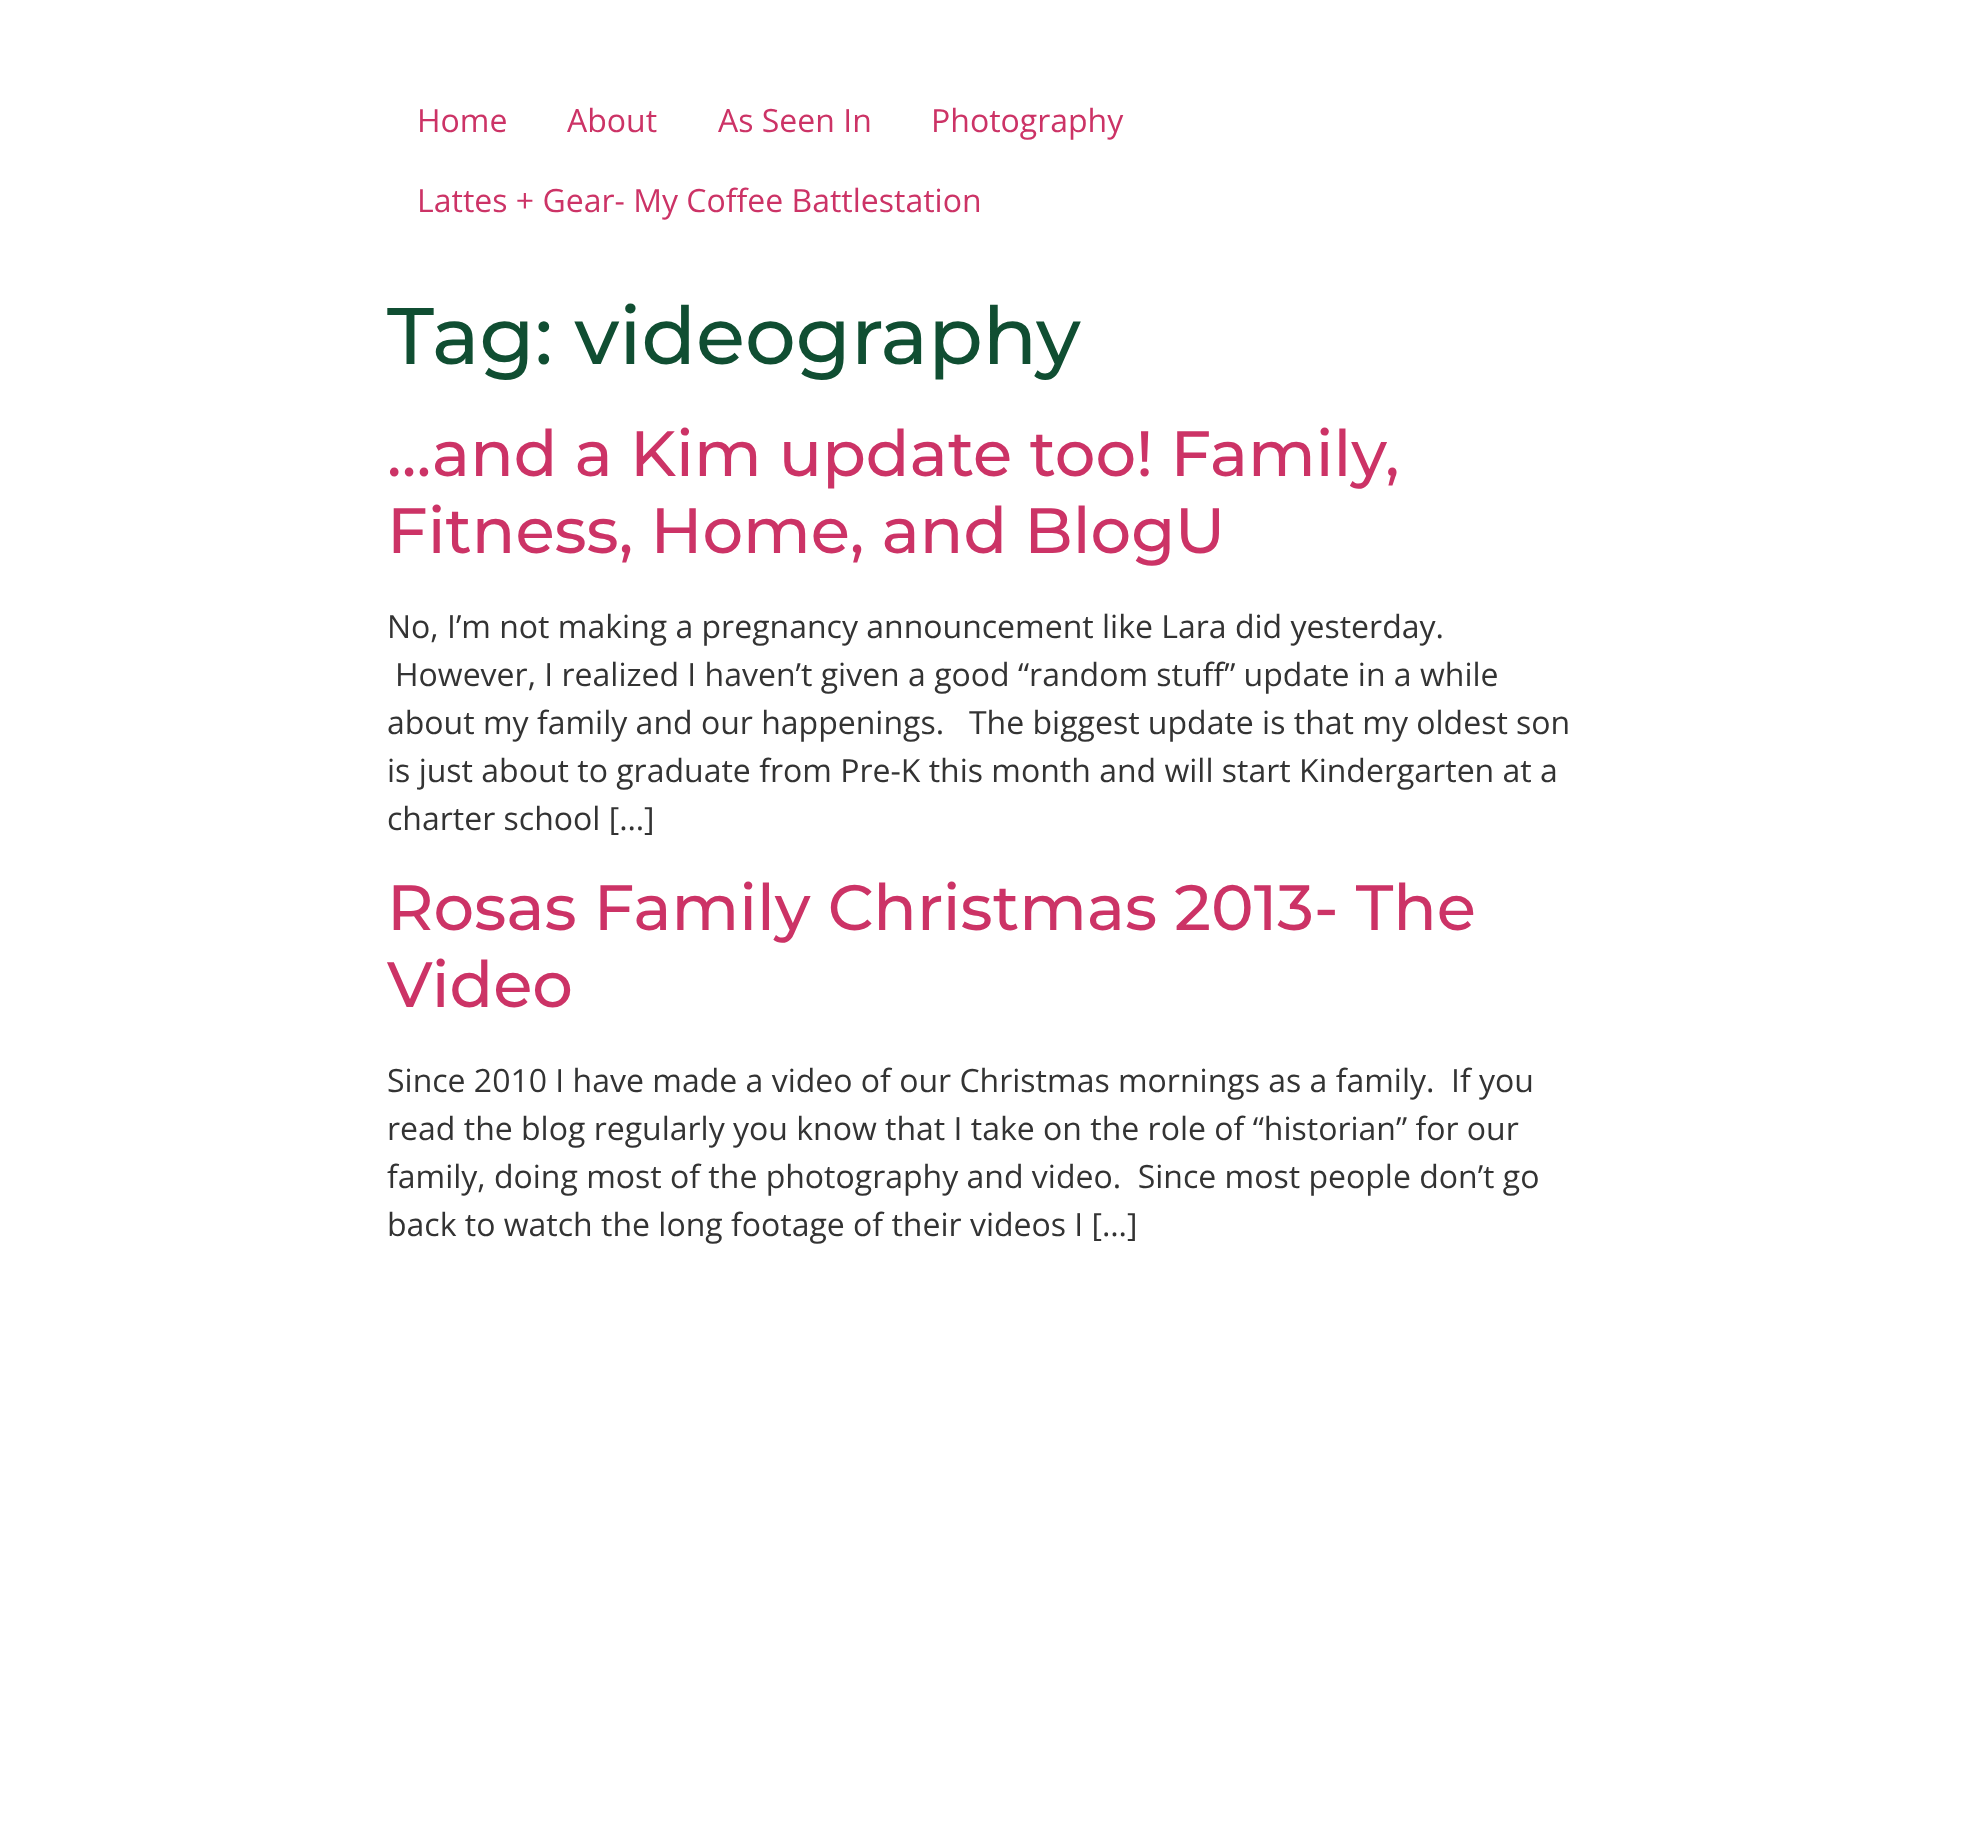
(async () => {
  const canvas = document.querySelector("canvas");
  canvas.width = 1974;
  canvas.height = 1847;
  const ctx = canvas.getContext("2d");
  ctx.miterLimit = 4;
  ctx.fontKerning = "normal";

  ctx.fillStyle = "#ffffff";
  ctx.fillRect(0, 0, 1974, 1847);
  ctx.font = "32px Open Sans";
  ctx.fillStyle = "#cc3366";
  for (const [text, x, y] of [
    ["Home", 417, 132],
    ["About", 567, 132],
    ["As Seen In", 718, 132],
    ["Photography", 931, 132],
    ["Lattes + Gear- My Coffee Battlestation", 417, 212],
  ]) {
    ctx.fillText(text, x, y);
  }
  ctx.font = "500 80px Montserrat";
  ctx.fillStyle = "#104e32";
  ctx.fillText("Tag: videography", 387, 364);
  ctx.font = "500 64px Montserrat";
  ctx.fillStyle = "#cc3366";
  ctx.fillText("…and a Kim update too! Family,", 387, 476);
  ctx.fillText("Fitness, Home, and BlogU", 387, 553);
  ctx.font = "32px Open Sans";
  ctx.fillStyle = "#333333";
  for (const [text, x, y] of [
    ["No, I’m not making a pregnancy announcement like Lara did yesterday.", 387, 638],
    ["However, I realized I haven’t given a good “random stuff” update in a while", 395, 686],
    ["about my family and our happenings.   The biggest update is that my oldest son", 387, 734],
    ["is just about to graduate from Pre-K this month and will start Kindergarten at a", 387, 782],
    ["charter school […]", 387, 830],
  ]) {
    ctx.fillText(text, x, y);
  }
  ctx.font = "500 64px Montserrat";
  ctx.fillStyle = "#cc3366";
  ctx.fillText("Rosas Family Christmas 2013- The", 387, 930);
  ctx.fillText("Video", 387, 1007);
  ctx.font = "32px Open Sans";
  ctx.fillStyle = "#333333";
  for (const [text, x, y] of [
    ["Since 2010 I have made a video of our Christmas mornings as a family.  If you", 387, 1092],
    ["read the blog regularly you know that I take on the role of “historian” for our", 387, 1140],
    ["family, doing most of the photography and video.  Since most people don’t go", 387, 1188],
    ["back to watch the long footage of their videos I […]", 387, 1236],
  ]) {
    ctx.fillText(text, x, y);
  }
})();
